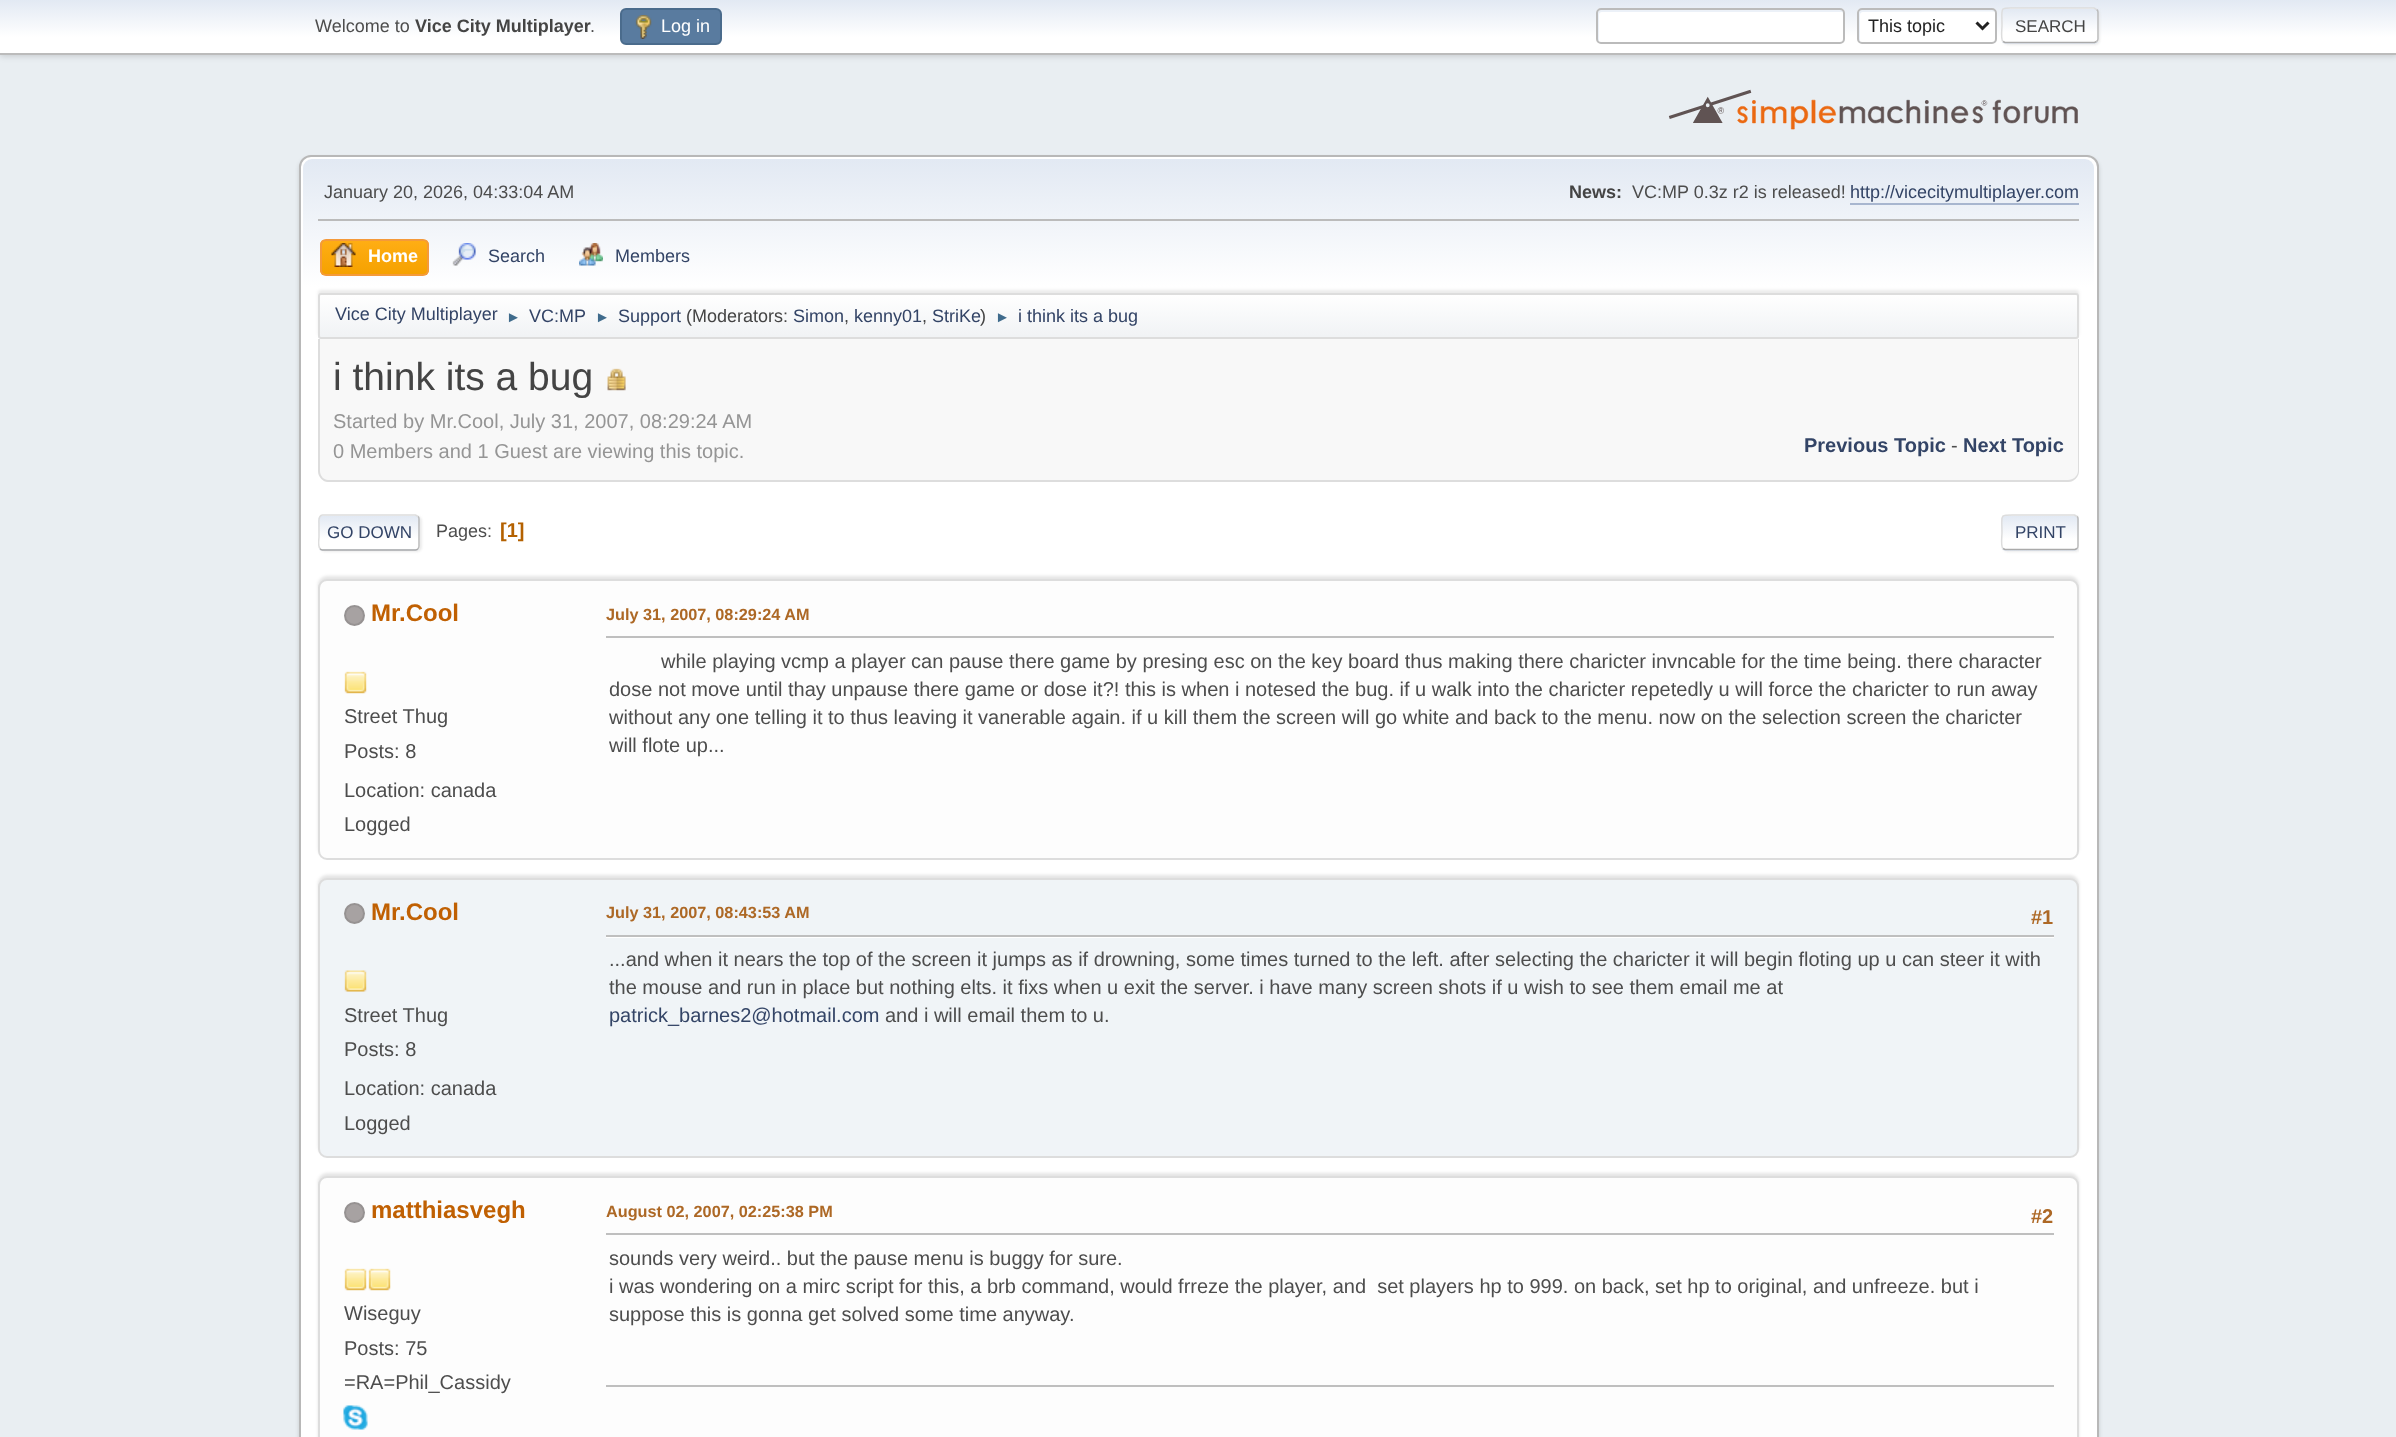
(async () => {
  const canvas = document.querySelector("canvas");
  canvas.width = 2396;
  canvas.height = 1437;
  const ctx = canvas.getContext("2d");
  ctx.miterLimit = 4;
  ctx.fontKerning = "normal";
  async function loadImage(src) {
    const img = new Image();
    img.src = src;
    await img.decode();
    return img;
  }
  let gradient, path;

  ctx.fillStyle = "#e9eef2";
  ctx.fillRect(0, 0, 2396, 1437);
  ctx.fillStyle = "rgba(0, 0, 0, 0.16)";
  ctx.filter = "blur(3px)";
  ctx.beginPath();
  ctx.rect(0, 2, 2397, 54);
  ctx.fill();
  ctx.filter = "none";
  gradient = ctx.createLinearGradient(1199, 0, 1199, 53);
  gradient.addColorStop(0, "#e2e9f3");
  gradient.addColorStop(0.7, "#ffffff");
  ctx.fillStyle = gradient;
  ctx.fillRect(0, 0, 2396, 53);
  ctx.fillStyle = "#bbbbbb";
  ctx.fillRect(0, 53, 2396, 2);
  ctx.fillStyle = "#597b9f";
  ctx.beginPath();
  ctx.roundRect(621, 9, 100, 35, 5);
  ctx.fill();
  ctx.strokeStyle = "#4a6b8c";
  ctx.lineWidth = 2;
  ctx.stroke();
  ctx.drawImage(await loadImage("img/1.png"), 635, 15, 17, 24);
  ctx.fillStyle = "#ffffff";
  ctx.beginPath();
  ctx.roundRect(1596, 8, 249, 36, 5);
  ctx.fill();
  ctx.fillStyle = "#ecf1f8";
  path = new Path2D("M1602 12H1842L1844 13V12C1844 10 1843 9 1841 9H1601C1599 9 1598 10 1598 12V39C1598 40 1598 41 1599 41V15C1599 13 1600 12 1602 12Z");
  ctx.fill(path);
  ctx.beginPath();
  ctx.roundRect(1597, 9, 247, 34, 4);
  ctx.strokeStyle = "#bbbbbb";
  ctx.stroke();
  ctx.fillStyle = "#ffffff";
  ctx.beginPath();
  ctx.roundRect(1857, 8, 140, 36, 5);
  ctx.fill();
  ctx.fillStyle = "#ecf1f8";
  path = new Path2D("M1863 12C1875 12 1994 11 1995 12C1995 10 1994 9 1992 9H1862C1860 9 1859 10 1859 12V39C1859 40 1859 41 1860 41V15C1860 13 1861 12 1863 12Z");
  ctx.fill(path);
  ctx.beginPath();
  ctx.roundRect(1858, 9, 138, 34, 4);
  ctx.stroke();
  path = new Path2D("M1976.5 22.5L1982.5 28.5L1988.5 22.5");
  ctx.strokeStyle = "#222222";
  ctx.lineWidth = 3;
  ctx.stroke(path);
  ctx.fillStyle = "rgba(221, 221, 221, 0.57)";
  ctx.filter = "blur(1px)";
  ctx.beginPath();
  ctx.roundRect(2003, 9, 97, 36, 5);
  ctx.fill();
  ctx.filter = "none";
  ctx.save();
  ctx.beginPath();
  ctx.roundRect(2001, 8, 98, 36, 5);
  ctx.clip();
  gradient = ctx.createLinearGradient(2050, -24, 2050, 9);
  gradient.addColorStop(0, "#e2e9f3");
  gradient.addColorStop(0.7, "#ffffff");
  ctx.fillStyle = gradient;
  ctx.fillRect(2001, 8, 98, 1);
  gradient = ctx.createLinearGradient(2050, 9, 2050, 42);
  gradient.addColorStop(0, "#e2e9f3");
  gradient.addColorStop(0.7, "#ffffff");
  ctx.fillStyle = gradient;
  ctx.fillRect(2001, 9, 98, 33);
  gradient = ctx.createLinearGradient(2050, 42, 2050, 75);
  gradient.addColorStop(0, "#e2e9f3");
  gradient.addColorStop(0.7, "#ffffff");
  ctx.fillStyle = gradient;
  ctx.fillRect(2001, 42, 98, 2);
  ctx.restore();
  path = new Path2D("M2096.5 9.5C2097.5 10 2098 11 2098 12V39C2098 40 2097.5 41 2096.5 41.5");
  ctx.strokeStyle = "#bbbbbb";
  ctx.lineWidth = 1.5;
  ctx.stroke(path);
  path = new Path2D("M2096.5 41.5L2094.5 42.5H2005L2003 41.5");
  ctx.strokeStyle = "#aaaaaa";
  ctx.stroke(path);
  path = new Path2D("M2003 41.5C2000.5 39.5 2002 28.5 2002 25.5C2002 5 1998.5 8 2020 8H2094L2096.5 9.5");
  ctx.strokeStyle = "#dddddd";
  ctx.stroke(path);
  ctx.drawImage(await loadImage("img/2.png"), 1668, 89, 410, 41);
  ctx.fillStyle = "rgba(0, 0, 0, 0.14)";
  ctx.filter = "blur(2px)";
  ctx.beginPath();
  ctx.roundRect(299, 158, 1800, 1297, 12);
  ctx.fill();
  ctx.filter = "none";
  ctx.fillStyle = "#ffffff";
  ctx.beginPath();
  ctx.roundRect(300, 156, 1798, 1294, 11);
  ctx.fill();
  ctx.strokeStyle = "#b8b8b8";
  ctx.lineWidth = 2;
  ctx.stroke();
  gradient = ctx.createLinearGradient(1199, 159, 1199, 342);
  gradient.addColorStop(0, "#e2e9f3");
  gradient.addColorStop(0.7, "#ffffff");
  ctx.fillStyle = gradient;
  ctx.beginPath();
  ctx.roundRect(303, 159, 1791, 183, [9, 9, 0, 0]);
  ctx.fill();
  ctx.fillStyle = "#bbbbbb";
  ctx.fillRect(318, 219, 1761, 2);
  ctx.fillStyle = "#a8b6cf";
  ctx.fillRect(1850, 203, 229, 2);
  ctx.save();
  ctx.beginPath();
  ctx.roundRect(320, 239, 109, 37, 6);
  ctx.clip();
  gradient = ctx.createLinearGradient(374, 240, 374, 275);
  gradient.addColorStop(0, "#ffae14");
  gradient.addColorStop(1, "#f5a100");
  ctx.fillStyle = gradient;
  ctx.fillRect(320, 240, 109, 35);
  ctx.restore();
  ctx.beginPath();
  ctx.roundRect(321, 240, 107, 35, 5);
  ctx.strokeStyle = "#f49a3a";
  ctx.stroke();
  ctx.drawImage(await loadImage("img/3.png"), 331, 243, 25, 24);
  ctx.drawImage(await loadImage("img/4.png"), 452, 243, 24, 23);
  ctx.drawImage(await loadImage("img/5.png"), 579, 243, 24, 23);
  ctx.fillStyle = "rgba(0, 0, 0, 0.08)";
  ctx.filter = "blur(1.5px)";
  ctx.beginPath();
  ctx.roundRect(318, 290, 1761, 46, 3);
  ctx.fill();
  ctx.filter = "none";
  ctx.save();
  ctx.beginPath();
  ctx.roundRect(318, 293, 1761, 46, 3);
  ctx.clip();
  gradient = ctx.createLinearGradient(1199, 294, 1199, 338);
  gradient.addColorStop(0, "#ffffff");
  gradient.addColorStop(0.95, "#f1f3f5");
  ctx.fillStyle = gradient;
  ctx.fillRect(318, 294, 1761, 44);
  ctx.restore();
  ctx.beginPath();
  ctx.roundRect(319, 294, 1759, 44, 2);
  ctx.strokeStyle = "#dddddd";
  ctx.stroke();
  ctx.fillStyle = "#f8f8f8";
  ctx.beginPath();
  ctx.roundRect(318, 339, 1761, 143, [0, 0, 11, 11]);
  ctx.fill();
  ctx.fillStyle = "#dddddd";
  path = new Path2D("M318 339H2079V471C2079 477 2074 482 2068 482H328C323 482 318 477 318 471ZM320 339H2078V471C2078 476 2073 480 2068 480H328C324 480 320 476 320 471Z");
  ctx.fill(path, "evenodd");
  ctx.drawImage(await loadImage("img/6.png"), 607, 368, 19, 23);
  ctx.fillStyle = "rgba(221, 221, 221, 0.57)";
  ctx.filter = "blur(1px)";
  ctx.beginPath();
  ctx.roundRect(320, 516, 102, 36, 5);
  ctx.fill();
  ctx.filter = "none";
  ctx.save();
  ctx.beginPath();
  ctx.roundRect(318, 515, 102, 36, 5);
  ctx.clip();
  gradient = ctx.createLinearGradient(369, 516, 369, 549);
  gradient.addColorStop(0, "#e2e9f3");
  gradient.addColorStop(0.7, "#ffffff");
  ctx.fillStyle = gradient;
  ctx.fillRect(318, 516, 102, 33);
  gradient = ctx.createLinearGradient(369, 549, 369, 582);
  gradient.addColorStop(0, "#e2e9f3");
  gradient.addColorStop(0.7, "#ffffff");
  ctx.fillStyle = gradient;
  ctx.fillRect(318, 549, 102, 2);
  ctx.restore();
  path = new Path2D("M418 516.5C419 517 419 518 419 519V546C419 547 419 548 418 548.5");
  ctx.strokeStyle = "#bbbbbb";
  ctx.lineWidth = 1.5;
  ctx.stroke(path);
  path = new Path2D("M418 548.5C417.5 549.5 416.5 550 415.5 550H322.5C321.5 550 320.5 549.5 320 548.5");
  ctx.strokeStyle = "#aaaaaa";
  ctx.stroke(path);
  ctx.save();
  ctx.beginPath();
  ctx.rect(318, 504, 1761, 57);
  ctx.clip();
  path = new Path2D("M320 548.5C317.5 546 319 540 319 537V523.5C319 520.5 318 515.5 322.5 515H415.5L418 516.5");
  ctx.strokeStyle = "#dddddd";
  ctx.stroke(path);
  ctx.restore();
  ctx.save();
  ctx.beginPath();
  ctx.rect(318, 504, 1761, 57);
  ctx.clip();
  ctx.filter = "blur(1px)";
  ctx.beginPath();
  ctx.roundRect(2003, 516, 78, 36, 5);
  ctx.fill();
  ctx.filter = "none";
  ctx.restore();
  ctx.save();
  ctx.beginPath();
  ctx.roundRect(2001, 515, 78, 36, 5);
  ctx.clip();
  gradient = ctx.createLinearGradient(2040, 516, 2040, 549);
  gradient.addColorStop(0, "#e2e9f3");
  gradient.addColorStop(0.7, "#ffffff");
  ctx.fillStyle = gradient;
  ctx.fillRect(2001, 516, 78, 33);
  gradient = ctx.createLinearGradient(2040, 549, 2040, 582);
  gradient.addColorStop(0, "#e2e9f3");
  gradient.addColorStop(0.7, "#ffffff");
  ctx.fillStyle = gradient;
  ctx.fillRect(2001, 549, 78, 2);
  ctx.restore();
  path = new Path2D("M2077 516.5C2078 517 2078 518 2078 519V546C2078 547 2078 548 2077 548.5");
  ctx.strokeStyle = "#bbbbbb";
  ctx.stroke(path);
  path = new Path2D("M2077 548.5L2075 549.5H2005L2003 548.5");
  ctx.strokeStyle = "#aaaaaa";
  ctx.stroke(path);
  path = new Path2D("M2003 548.5C2000.5 546.5 2002 535.5 2002 532.5C2002 513.5 1998.5 515 2017 515H2074.5L2077 516.5");
  ctx.strokeStyle = "#dddddd";
  ctx.stroke(path);
  ctx.fillStyle = "rgba(0, 0, 0, 0.1)";
  ctx.filter = "blur(1.5px)";
  ctx.beginPath();
  ctx.roundRect(318, 576, 1761, 281, 9);
  ctx.fill();
  ctx.filter = "none";
  ctx.fillStyle = "#fdfdfd";
  ctx.beginPath();
  ctx.roundRect(319, 580, 1759, 279, 8);
  ctx.fill();
  ctx.lineWidth = 2;
  ctx.stroke();
  ctx.fillStyle = "#a7a2a2";
  ctx.beginPath();
  ctx.arc(354.5, 615.5, 9.5, 0, Math.PI * 2);
  ctx.fill();
  ctx.strokeStyle = "#969292";
  ctx.stroke();
  ctx.drawImage(await loadImage("img/7.png"), 344, 671, 23, 23);
  ctx.fillStyle = "#bfbfbf";
  ctx.fillRect(606, 636, 1448, 2);
  ctx.fillStyle = "rgba(0, 0, 0, 0.1)";
  ctx.filter = "blur(1.5px)";
  ctx.beginPath();
  ctx.roundRect(318, 875, 1761, 280, 9);
  ctx.fill();
  ctx.filter = "none";
  ctx.fillStyle = "#f0f4f7";
  ctx.beginPath();
  ctx.roundRect(319, 879, 1759, 278, 8);
  ctx.fill();
  ctx.strokeStyle = "#dddddd";
  ctx.stroke();
  ctx.fillStyle = "#a7a2a2";
  ctx.beginPath();
  ctx.arc(354.5, 913.5, 9.5, 0, Math.PI * 2);
  ctx.fill();
  ctx.strokeStyle = "#969292";
  ctx.stroke();
  ctx.drawImage(await loadImage("img/8.png"), 344, 970, 23, 22);
  ctx.fillStyle = "#ffffff";
  ctx.fillRect(606, 937, 1448, 1);
  ctx.fillStyle = "#bfbfbf";
  ctx.fillRect(606, 935, 1448, 2);
  ctx.fillStyle = "rgba(0, 0, 0, 0.1)";
  ctx.filter = "blur(1.5px)";
  ctx.beginPath();
  ctx.roundRect(318, 1173, 1761, 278, 9);
  ctx.fill();
  ctx.filter = "none";
  ctx.fillStyle = "#fdfdfd";
  ctx.beginPath();
  ctx.roundRect(319, 1177, 1759, 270, 8);
  ctx.fill();
  ctx.strokeStyle = "#dddddd";
  ctx.stroke();
  ctx.fillStyle = "#a7a2a2";
  ctx.beginPath();
  ctx.arc(354.5, 1212.5, 9.5, 0, Math.PI * 2);
  ctx.fill();
  ctx.strokeStyle = "#969292";
  ctx.stroke();
  ctx.drawImage(await loadImage("img/7.png"), 344, 1268, 23, 23);
  ctx.drawImage(await loadImage("img/9.png"), 368, 1268, 23, 23);
  ctx.drawImage(await loadImage("img/10.png"), 343, 1405, 25, 25);
  ctx.fillStyle = "#bfbfbf";
  ctx.fillRect(606, 1233, 1448, 2);
  ctx.fillRect(606, 1385, 1448, 2);
  ctx.font = "18px Liberation Sans";
  ctx.fillStyle = "#4d4d4d";
  ctx.fillText("Welcome to", 315, 32);
  ctx.font = "bold 18px Liberation Sans";
  ctx.fillStyle = "#444444";
  ctx.fillText("Vice City Multiplayer", 415, 32);
  ctx.font = "18px Liberation Sans";
  ctx.fillStyle = "#4d4d4d";
  ctx.fillText(".", 590, 32);
  ctx.fillStyle = "#ffffff";
  ctx.fillText("Log in", 661, 32);
  ctx.fillStyle = "#222222";
  ctx.fillText("This topic", 1868, 32);
  ctx.font = "17px Liberation Sans";
  ctx.fillStyle = "#444444";
  ctx.fillText("SEARCH", 2015, 32);
  ctx.font = "18px Liberation Sans";
  ctx.fillStyle = "#4d4d4d";
  ctx.fillText("January 20, 2026, 04:33:04 AM", 324, 198);
  ctx.font = "bold 18px Liberation Sans";
  ctx.fillStyle = "#444444";
  ctx.fillText("News:", 1569, 198);
  ctx.font = "18px Liberation Sans";
  ctx.fillStyle = "#4d4d4d";
  ctx.fillText("VC:MP 0.3z r2 is released!", 1632, 198);
  ctx.fillStyle = "#334466";
  ctx.fillText("http://vicecitymultiplayer.com", 1850, 198);
  ctx.font = "bold 18px Liberation Sans";
  ctx.fillStyle = "#ffffff";
  ctx.fillText("Home", 368, 262);
  ctx.font = "18px Liberation Sans";
  ctx.fillStyle = "#334466";
  for (const [text, x, y] of [
    ["Search", 488, 262],
    ["Members", 615, 262],
    ["Vice City Multiplayer", 335, 320],
  ]) {
    ctx.fillText(text, x, y);
  }
  ctx.font = "15px Liberation Sans";
  ctx.fillStyle = "#3f6b8c";
  ctx.fillText("►", 506, 322);
  ctx.font = "18px Liberation Sans";
  ctx.fillStyle = "#334466";
  ctx.fillText("VC:MP", 529, 322);
  ctx.font = "15px Liberation Sans";
  ctx.fillStyle = "#3f6b8c";
  ctx.fillText("►", 595, 322);
  ctx.font = "18px Liberation Sans";
  ctx.fillStyle = "#334466";
  ctx.fillText("Support", 618, 322);
  ctx.fillStyle = "#444444";
  ctx.fillText("(Moderators:", 686, 322);
  ctx.fillStyle = "#334466";
  ctx.fillText("Simon", 793, 322);
  ctx.fillStyle = "#444444";
  ctx.fillText(",", 844, 322);
  ctx.fillStyle = "#334466";
  ctx.fillText("kenny01", 854, 322);
  ctx.fillStyle = "#444444";
  ctx.fillText(",", 922, 322);
  ctx.fillStyle = "#334466";
  ctx.fillText("StriKe", 932, 322);
  ctx.fillStyle = "#444444";
  ctx.fillText(")", 980, 322);
  ctx.font = "15px Liberation Sans";
  ctx.fillStyle = "#3f6b8c";
  ctx.fillText("►", 995, 322);
  ctx.font = "18px Liberation Sans";
  ctx.fillStyle = "#334466";
  ctx.fillText("i think its a bug", 1018, 322);
  ctx.font = "39px Liberation Sans";
  ctx.fillStyle = "#444444";
  ctx.fillText("i think its a bug", 333, 390);
  ctx.font = "20px Liberation Sans";
  ctx.fillStyle = "#959595";
  ctx.fillText("Started by Mr.Cool, July 31, 2007, 08:29:24 AM", 333, 428);
  ctx.fillText("0 Members and 1 Guest are viewing this topic.", 333, 458);
  ctx.font = "bold 20px Liberation Sans";
  ctx.fillStyle = "#334466";
  ctx.fillText("Previous Topic", 1804, 452);
  ctx.font = "20px Liberation Sans";
  ctx.fillStyle = "#4d4d4d";
  ctx.fillText("-", 1951, 452);
  ctx.font = "bold 20px Liberation Sans";
  ctx.fillStyle = "#334466";
  ctx.fillText("Next Topic", 1963, 452);
  ctx.font = "17px Liberation Sans";
  ctx.fillText("GO DOWN", 327, 538);
  ctx.font = "18px Liberation Sans";
  ctx.fillStyle = "#4d4d4d";
  ctx.fillText("Pages:", 436, 537);
  ctx.font = "bold 20px Liberation Sans";
  ctx.fillStyle = "#b46100";
  ctx.fillText("[1]", 500, 537);
  ctx.font = "17px Liberation Sans";
  ctx.fillStyle = "#334466";
  ctx.fillText("PRINT", 2015, 538);
  ctx.font = "bold 24px Liberation Sans";
  ctx.fillStyle = "#c06002";
  ctx.fillText("Mr.Cool", 371, 621);
  ctx.font = "20px Liberation Sans";
  ctx.fillStyle = "#4d4d4d";
  for (const [text, x, y] of [
    ["Street Thug", 344, 723],
    ["Posts: 8", 344, 758],
    ["Location: canada", 344, 797],
    ["Logged", 344, 831],
  ]) {
    ctx.fillText(text, x, y);
  }
  ctx.font = "bold 16.25px Liberation Sans";
  ctx.fillStyle = "#ad6825";
  ctx.fillText("July 31, 2007, 08:29:24 AM", 606, 620);
  ctx.font = "20px Liberation Sans";
  ctx.fillStyle = "#4d4d4d";
  for (const [text, x, y] of [
    ["while playing vcmp a player can pause there game by presing esc on the key board thus making there charicter invncable for the time being. there character", 661, 668],
    ["dose not move until thay unpause there game or dose it?! this is when i notesed the bug. if u walk into the charicter repetedly u will force the charicter to run away", 609, 696],
    ["without any one telling it to thus leaving it vanerable again. if u kill them the screen will go white and back to the menu. now on the selection screen the charicter", 609, 724],
    ["will flote up...", 609, 752],
  ]) {
    ctx.fillText(text, x, y);
  }
  ctx.font = "bold 24px Liberation Sans";
  ctx.fillStyle = "#c06002";
  ctx.fillText("Mr.Cool", 371, 920);
  ctx.font = "20px Liberation Sans";
  ctx.fillStyle = "#4d4d4d";
  for (const [text, x, y] of [
    ["Street Thug", 344, 1022],
    ["Posts: 8", 344, 1056],
    ["Location: canada", 344, 1095],
    ["Logged", 344, 1130],
  ]) {
    ctx.fillText(text, x, y);
  }
  ctx.font = "bold 16.25px Liberation Sans";
  ctx.fillStyle = "#ad6825";
  ctx.fillText("July 31, 2007, 08:43:53 AM", 606, 918);
  ctx.font = "bold 20px Liberation Sans";
  ctx.fillText("#1", 2031, 924);
  ctx.font = "20px Liberation Sans";
  ctx.fillStyle = "#4d4d4d";
  ctx.fillText("...and when it nears the top of the screen it jumps as if drowning, some times turned to the left. after selecting the charicter it will begin floting up u can steer it with", 609, 966);
  ctx.fillText("the mouse and run in place but nothing elts. it fixs when u exit the server. i have many screen shots if u wish to see them email me at", 609, 994);
  ctx.fillStyle = "#334466";
  ctx.fillText("patrick_barnes2@hotmail.com", 609, 1022);
  ctx.fillStyle = "#4d4d4d";
  ctx.fillText("and i will email them to u.", 885, 1022);
  ctx.font = "bold 24px Liberation Sans";
  ctx.fillStyle = "#c06002";
  ctx.fillText("matthiasvegh", 371, 1218);
  ctx.font = "20px Liberation Sans";
  ctx.fillStyle = "#4d4d4d";
  for (const [text, x, y] of [
    ["Wiseguy", 344, 1320],
    ["Posts: 75", 344, 1355],
    ["=RA=Phil_Cassidy", 344, 1389],
  ]) {
    ctx.fillText(text, x, y);
  }
  ctx.font = "bold 16.25px Liberation Sans";
  ctx.fillStyle = "#ad6825";
  ctx.fillText("August 02, 2007, 02:25:38 PM", 606, 1217);
  ctx.font = "bold 20px Liberation Sans";
  ctx.fillText("#2", 2031, 1223);
  ctx.font = "20px Liberation Sans";
  ctx.fillStyle = "#4d4d4d";
  for (const [text, x, y] of [
    ["sounds very weird.. but the pause menu is buggy for sure.", 609, 1265],
    ["i was wondering on a mirc script for this, a brb command, would frreze the player, and  set players hp to 999. on back, set hp to original, and unfreeze. but i", 609, 1293],
    ["suppose this is gonna get solved some time anyway.", 609, 1321],
  ]) {
    ctx.fillText(text, x, y);
  }
})();
